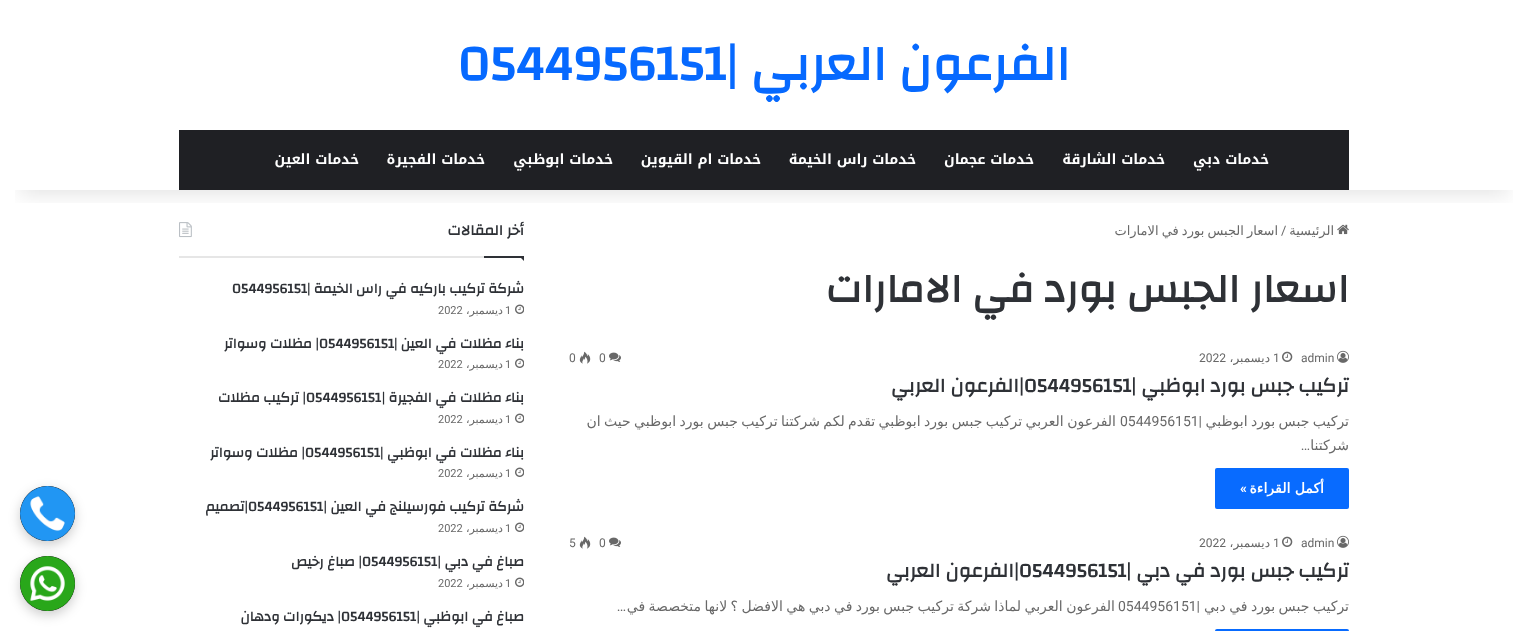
(async () => {
  const canvas = document.querySelector("canvas");
  canvas.width = 1528;
  canvas.height = 631;
  const ctx = canvas.getContext("2d");
  ctx.miterLimit = 4;
  ctx.fontKerning = "normal";
  async function loadImage(src) {
    const img = new Image();
    img.src = src;
    await img.decode();
    return img;
  }
  let path;

  ctx.fillStyle = "#ffffff";
  ctx.fillRect(0, 0, 1528, 631);
  ctx.drawImage(await loadImage("img/1.png"), 1337, 224, 12, 11);
  ctx.drawImage(await loadImage("img/6.png"), 179, 222, 13, 16);
  ctx.save();
  ctx.beginPath();
  ctx.rect(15, 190, 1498, 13);
  ctx.clip();
  ctx.fillStyle = "rgba(0, 0, 0, 0.1)";
  ctx.filter = "blur(10px)";
  ctx.beginPath();
  ctx.rect(20, 45, 1488, 150);
  ctx.fill();
  ctx.filter = "none";
  ctx.restore();
  ctx.fillStyle = "#1f2024";
  ctx.fillRect(179, 130, 1170, 60);
  ctx.drawImage(await loadImage("img/2.png"), 1337, 350, 12, 13);
  ctx.drawImage(await loadImage("img/3.png"), 1282, 351, 11, 11);
  ctx.drawImage(await loadImage("img/4.png"), 609, 352, 12, 10);
  ctx.drawImage(await loadImage("img/5.png"), 579, 351, 12, 13);
  ctx.fillStyle = "#086bff";
  ctx.beginPath();
  ctx.roundRect(1215, 468, 134, 41, 2);
  ctx.fill();
  ctx.drawImage(await loadImage("img/2.png"), 1337, 535, 12, 13);
  ctx.drawImage(await loadImage("img/3.png"), 1282, 536, 11, 11);
  ctx.drawImage(await loadImage("img/4.png"), 609, 537, 12, 10);
  ctx.drawImage(await loadImage("img/5.png"), 579, 536, 12, 13);
  ctx.beginPath();
  ctx.roundRect(1215, 629, 134, 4, 2);
  ctx.fill();
  ctx.fillStyle = "#e6e6e6";
  ctx.fillRect(179, 256, 305, 2);
  ctx.fillStyle = "#2e3136";
  path = new Path2D("M519 256H524V261Z");
  ctx.fill(path);
  ctx.fillRect(484, 256, 40, 2);
  ctx.drawImage(await loadImage("img/7.png"), 515, 304, 9, 10);
  ctx.drawImage(await loadImage("img/7.png"), 515, 358, 9, 10);
  ctx.drawImage(await loadImage("img/7.png"), 515, 413, 9, 10);
  ctx.drawImage(await loadImage("img/7.png"), 515, 467, 9, 10);
  ctx.drawImage(await loadImage("img/7.png"), 515, 522, 9, 10);
  ctx.drawImage(await loadImage("img/7.png"), 515, 577, 9, 10);
  ctx.fillStyle = "rgba(0, 0, 0, 0.2)";
  ctx.filter = "blur(6px)";
  ctx.beginPath();
  ctx.roundRect(20, 490, 55, 55, 27.5);
  ctx.fill();
  ctx.filter = "none";
  ctx.fillStyle = "#000000";
  ctx.beginPath();
  ctx.arc(47.5, 513.5, 27.5, 0, Math.PI * 2);
  ctx.fill();
  ctx.drawImage(await loadImage("img/8.png"), 20, 486, 55, 55);
  ctx.fillStyle = "rgba(0, 0, 0, 0.2)";
  ctx.filter = "blur(6px)";
  ctx.beginPath();
  ctx.roundRect(20, 560, 55, 55, 27.5);
  ctx.fill();
  ctx.filter = "none";
  ctx.fillStyle = "#000000";
  ctx.beginPath();
  ctx.arc(47.5, 583.5, 27.5, 0, Math.PI * 2);
  ctx.fill();
  ctx.drawImage(await loadImage("img/9.png"), 20, 556, 55, 55);
  ctx.direction = "rtl";
  ctx.font = "bold 50px Changa";
  ctx.fillStyle = "#0669ff";
  ctx.fillText("الفرعون العربي |", 1070, 80);
  ctx.direction = "ltr";
  ctx.fillText("0544956151", 458, 80);
  ctx.direction = "rtl";
  ctx.font = "bold 14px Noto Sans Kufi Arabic";
  ctx.fillStyle = "#ffffff";
  for (const [text, x, y] of [
    ["خدمات دبي", 1269, 164],
    ["خدمات الشارقة", 1165, 164],
    ["خدمات عجمان", 1034, 164],
    ["خدمات راس الخيمة", 916, 164],
    ["خدمات ام القيوين", 761, 164],
    ["خدمات ابوظبي", 613, 164],
    ["خدمات الفجيرة", 485, 164],
    ["خدمات العين", 359, 164],
  ]) {
    ctx.fillText(text, x, y);
  }
  ctx.font = "13px DejaVu Sans";
  ctx.fillStyle = "#686868";
  ctx.fillText("الرئيسية", 1334, 235);
  ctx.direction = "ltr";
  ctx.font = "13px Roboto";
  ctx.fillText("/", 1281, 235);
  ctx.wordSpacing = "-1px";
  ctx.direction = "rtl";
  ctx.font = "13px DejaVu Sans";
  ctx.fillText("اسعار الجبس بورد في الامارات", 1278, 235);
  ctx.wordSpacing = "0px";
  ctx.font = "bold 41px Changa";
  ctx.fillStyle = "#2e3136";
  ctx.fillText("اسعار الجبس بورد في الامارات", 1349, 302);
  ctx.direction = "ltr";
  ctx.font = "12px Roboto";
  ctx.fillStyle = "#686868";
  ctx.fillText("admin", 1301, 362);
  ctx.fillText("1", 1273, 362);
  ctx.direction = "rtl";
  ctx.font = "12px DejaVu Sans";
  ctx.fillText("ديسمبر،", 1270, 362);
  ctx.direction = "ltr";
  ctx.font = "12px Roboto";
  for (const [text, x, y] of [
    ["2022", 1199, 362],
    ["0", 599, 362],
    ["0", 569, 362],
  ]) {
    ctx.fillText(text, x, y);
  }
  ctx.direction = "rtl";
  ctx.font = "bold 20px Changa";
  ctx.fillStyle = "#2e3136";
  ctx.fillText("تركيب جبس بورد ابوظبي |", 1349, 392);
  ctx.direction = "ltr";
  ctx.fillText("0544956151", 1024, 392);
  ctx.direction = "rtl";
  ctx.fillText("|الفرعون العربي", 1024, 392);
  ctx.wordSpacing = "-1px";
  ctx.font = "14px DejaVu Sans";
  ctx.fillStyle = "#686868";
  ctx.fillText("تركيب جبس بورد ابوظبي", 1349, 426);
  ctx.wordSpacing = "0px";
  ctx.font = "14px Roboto";
  ctx.fillText("|", 1202, 426);
  ctx.wordSpacing = "-1px";
  ctx.font = "14px DejaVu Sans";
  ctx.fillText("الفرعون العربي تركيب جبس بورد ابوظبي تقدم لكم شركتنا تركيب جبس بورد ابوظبي حيث ان", 1116, 426);
  ctx.wordSpacing = "0px";
  ctx.direction = "ltr";
  ctx.font = "14px Roboto";
  ctx.fillText("0544956151", 1120, 426);
  ctx.direction = "rtl";
  ctx.font = "14px DejaVu Sans";
  ctx.fillText("شركتنا", 1349, 450);
  ctx.font = "14px Roboto";
  ctx.fillText("…", 1310, 450);
  ctx.font = "bold 14px DejaVu Sans";
  ctx.fillStyle = "#ffffff";
  ctx.fillText("أكمل القراءة", 1324, 493);
  ctx.font = "600 14px Roboto";
  ctx.fillText("»", 1247, 493);
  ctx.direction = "ltr";
  ctx.font = "12px Roboto";
  ctx.fillStyle = "#686868";
  ctx.fillText("admin", 1301, 547);
  ctx.fillText("1", 1273, 547);
  ctx.direction = "rtl";
  ctx.font = "12px DejaVu Sans";
  ctx.fillText("ديسمبر،", 1270, 547);
  ctx.direction = "ltr";
  ctx.font = "12px Roboto";
  for (const [text, x, y] of [
    ["2022", 1199, 547],
    ["0", 599, 547],
    ["5", 569, 547],
  ]) {
    ctx.fillText(text, x, y);
  }
  ctx.direction = "rtl";
  ctx.font = "bold 20px Changa";
  ctx.fillStyle = "#2e3136";
  ctx.fillText("تركيب جبس بورد في دبي |", 1349, 577);
  ctx.direction = "ltr";
  ctx.fillText("0544956151", 1019, 577);
  ctx.direction = "rtl";
  ctx.fillText("|الفرعون العربي", 1019, 577);
  ctx.wordSpacing = "-1px";
  ctx.font = "14px DejaVu Sans";
  ctx.fillStyle = "#686868";
  ctx.fillText("تركيب جبس بورد في دبي", 1349, 611);
  ctx.wordSpacing = "0px";
  ctx.font = "14px Roboto";
  ctx.fillText("|", 1200, 611);
  ctx.wordSpacing = "-1px";
  ctx.font = "14px DejaVu Sans";
  ctx.fillText("الفرعون العربي لماذا شركة تركيب جبس بورد في دبي هي الافضل ؟ لانها متخصصة في", 1115, 611);
  ctx.wordSpacing = "0px";
  ctx.direction = "ltr";
  ctx.font = "14px Roboto";
  ctx.fillText("0544956151", 1118, 611);
  ctx.direction = "rtl";
  ctx.fillText("…", 626, 611);
  ctx.font = "bold 15px Changa";
  ctx.fillStyle = "#2e3136";
  ctx.fillText("أخر المقالات", 524, 235);
  ctx.font = "bold 14px Changa";
  ctx.fillText("شركة تركيب باركيه في راس الخيمة |", 524, 293);
  ctx.direction = "ltr";
  ctx.fillText("0544956151", 232, 293);
  ctx.font = "11px Roboto";
  ctx.fillStyle = "#686868";
  ctx.fillText("1", 505, 314);
  ctx.direction = "rtl";
  ctx.font = "11px DejaVu Sans";
  ctx.fillText("ديسمبر،", 503, 314);
  ctx.direction = "ltr";
  ctx.font = "11px Roboto";
  ctx.fillText("2022", 438, 314);
  ctx.direction = "rtl";
  ctx.font = "bold 14px Changa";
  ctx.fillStyle = "#2e3136";
  ctx.fillText("بناء مظلات في العين |", 524, 348);
  ctx.direction = "ltr";
  ctx.fillText("0544956151", 319, 348);
  ctx.direction = "rtl";
  ctx.fillText("| مظلات وسواتر", 319, 348);
  ctx.direction = "ltr";
  ctx.font = "11px Roboto";
  ctx.fillStyle = "#686868";
  ctx.fillText("1", 505, 368);
  ctx.direction = "rtl";
  ctx.font = "11px DejaVu Sans";
  ctx.fillText("ديسمبر،", 503, 368);
  ctx.direction = "ltr";
  ctx.font = "11px Roboto";
  ctx.fillText("2022", 438, 368);
  ctx.direction = "rtl";
  ctx.font = "bold 14px Changa";
  ctx.fillStyle = "#2e3136";
  ctx.fillText("بناء مظلات في الفجيرة |", 524, 402);
  ctx.direction = "ltr";
  ctx.fillText("0544956151", 306, 402);
  ctx.direction = "rtl";
  ctx.fillText("| تركيب مظلات", 306, 402);
  ctx.direction = "ltr";
  ctx.font = "11px Roboto";
  ctx.fillStyle = "#686868";
  ctx.fillText("1", 505, 423);
  ctx.direction = "rtl";
  ctx.font = "11px DejaVu Sans";
  ctx.fillText("ديسمبر،", 503, 423);
  ctx.direction = "ltr";
  ctx.font = "11px Roboto";
  ctx.fillText("2022", 438, 423);
  ctx.direction = "rtl";
  ctx.font = "bold 14px Changa";
  ctx.fillStyle = "#2e3136";
  ctx.fillText("بناء مظلات في ابوظبي |", 524, 457);
  ctx.direction = "ltr";
  ctx.fillText("0544956151", 305, 457);
  ctx.direction = "rtl";
  ctx.fillText("| مظلات وسواتر", 305, 457);
  ctx.direction = "ltr";
  ctx.font = "11px Roboto";
  ctx.fillStyle = "#686868";
  ctx.fillText("1", 505, 477);
  ctx.direction = "rtl";
  ctx.font = "11px DejaVu Sans";
  ctx.fillText("ديسمبر،", 503, 477);
  ctx.direction = "ltr";
  ctx.font = "11px Roboto";
  ctx.fillText("2022", 438, 477);
  ctx.direction = "rtl";
  ctx.font = "bold 14px Changa";
  ctx.fillStyle = "#2e3136";
  ctx.fillText("شركة تركيب فورسيلنج في العين |", 524, 511);
  ctx.direction = "ltr";
  ctx.fillText("0544956151", 248, 511);
  ctx.direction = "rtl";
  ctx.fillText("|تصميم", 248, 511);
  ctx.direction = "ltr";
  ctx.font = "11px Roboto";
  ctx.fillStyle = "#686868";
  ctx.fillText("1", 505, 532);
  ctx.direction = "rtl";
  ctx.font = "11px DejaVu Sans";
  ctx.fillText("ديسمبر،", 503, 532);
  ctx.direction = "ltr";
  ctx.font = "11px Roboto";
  ctx.fillText("2022", 438, 532);
  ctx.direction = "rtl";
  ctx.font = "bold 14px Changa";
  ctx.fillStyle = "#2e3136";
  ctx.fillText("صباغ في دبي |", 524, 566);
  ctx.direction = "ltr";
  ctx.fillText("0544956151", 362, 566);
  ctx.direction = "rtl";
  ctx.fillText("| صباغ رخيص", 362, 566);
  ctx.direction = "ltr";
  ctx.font = "11px Roboto";
  ctx.fillStyle = "#686868";
  ctx.fillText("1", 505, 587);
  ctx.direction = "rtl";
  ctx.font = "11px DejaVu Sans";
  ctx.fillText("ديسمبر،", 503, 587);
  ctx.direction = "ltr";
  ctx.font = "11px Roboto";
  ctx.fillText("2022", 438, 587);
  ctx.direction = "rtl";
  ctx.font = "bold 14px Changa";
  ctx.fillStyle = "#2e3136";
  ctx.fillText("صباغ في ابوظبي |", 524, 621);
  ctx.direction = "ltr";
  ctx.fillText("0544956151", 341, 621);
  ctx.direction = "rtl";
  ctx.fillText("| ديكورات ودهان", 341, 621);
})();
